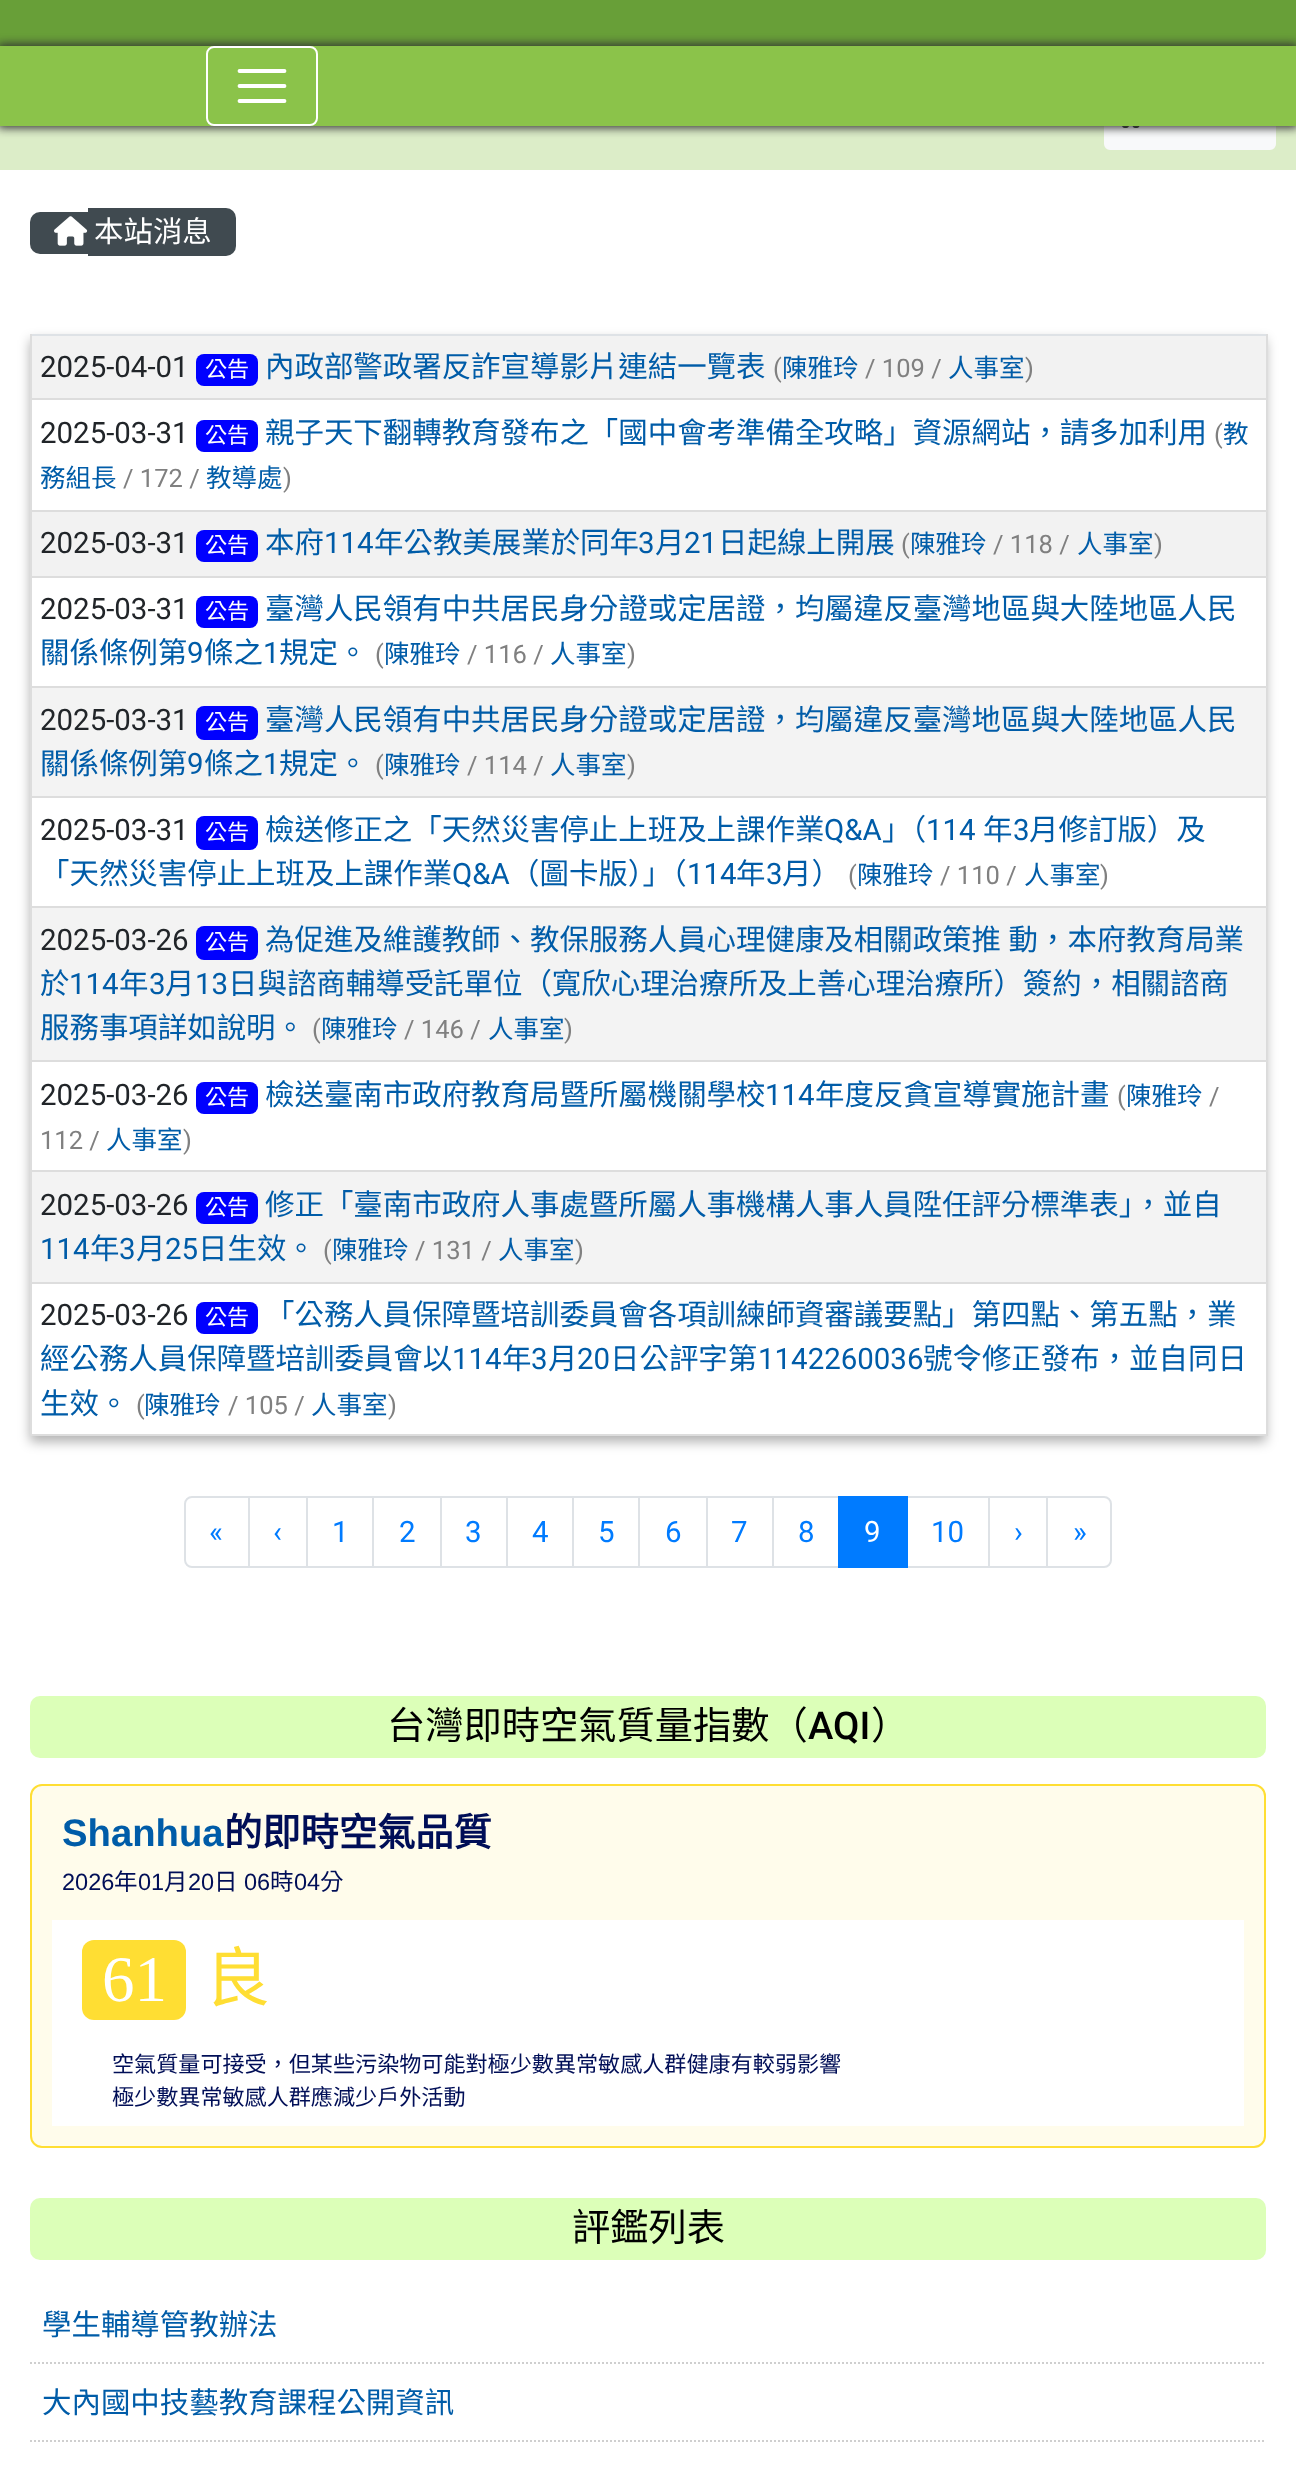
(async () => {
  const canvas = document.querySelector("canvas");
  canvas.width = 1296;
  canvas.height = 2479;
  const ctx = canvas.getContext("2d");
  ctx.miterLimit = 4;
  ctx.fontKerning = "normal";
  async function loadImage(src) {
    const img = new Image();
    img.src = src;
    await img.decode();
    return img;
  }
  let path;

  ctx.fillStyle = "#dcedc8";
  ctx.fillRect(0, 0, 1296, 2479);
  ctx.fillStyle = "#689f38";
  ctx.fillRect(0, 0, 1296, 46);
  ctx.fillStyle = "#f8f9fa";
  ctx.beginPath();
  ctx.roundRect(1105, 89, 170, 60, 5);
  ctx.fill();
  ctx.strokeStyle = "#f8f9fa";
  ctx.lineWidth = 2;
  ctx.stroke();
  ctx.drawImage(await loadImage("img/1.png"), 1122, 126, 18, 2);
  ctx.fillStyle = "#333333";
  ctx.filter = "blur(5px)";
  ctx.beginPath();
  ctx.rect(-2, 44, 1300, 84);
  ctx.fill();
  ctx.filter = "none";
  ctx.fillStyle = "#8bc34a";
  ctx.fillRect(0, 46, 1296, 80);
  ctx.beginPath();
  ctx.roundRect(207, 47, 110, 78, 7);
  ctx.strokeStyle = "#ffffff";
  ctx.stroke();
  path = new Path2D("M239.5 71H284.5M239.5 86H284.5M239.5 101H284.5");
  ctx.lineWidth = 3.8;
  ctx.lineCap = "round";
  ctx.stroke(path);
  ctx.fillStyle = "#ffffff";
  ctx.fillRect(0, 170, 1296, 2309);
  ctx.fillStyle = "#404a50";
  ctx.beginPath();
  ctx.roundRect(30, 212, 58, 42, [10, 0, 0, 10]);
  ctx.fill();
  ctx.beginPath();
  ctx.roundRect(88, 208, 148, 48, [0, 10, 10, 0]);
  ctx.fill();
  ctx.drawImage(await loadImage("img/2.png"), 54, 216, 34, 30);
  ctx.save();
  path = new Path2D("M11 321H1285V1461H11ZM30 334H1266V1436H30Z");
  ctx.clip(path, "evenodd");
  ctx.fillStyle = "rgba(0, 0, 0, 0.3)";
  ctx.filter = "blur(6px)";
  ctx.beginPath();
  ctx.rect(30, 340, 1236, 1102);
  ctx.fill();
  ctx.filter = "none";
  ctx.restore();
  for (const [x, y, w, h, color] of [
    [32, 336, 1234, 62, "#f2f2f2"],
    [30, 334, 1238, 2, "#dee2e6"],
    [1266, 1282, 2, 154, "#dddddd"],
    [1267, 398, 1, 886, "#dddddd"],
    [1266, 334, 2, 66, "#dddddd"],
    [30, 1434, 1238, 2, "#dddddd"],
    [30, 1282, 2, 154, "#dddddd"],
    [30, 1282, 1238, 2, "#dddddd"],
    [30, 1170, 2, 114, "#dddddd"],
    [30, 1170, 1238, 2, "#dddddd"],
    [30, 1060, 2, 112, "#dddddd"],
    [30, 1060, 1238, 2, "#dddddd"],
    [30, 906, 2, 156, "#dddddd"],
    [30, 906, 1238, 2, "#dddddd"],
    [30, 796, 2, 112, "#dddddd"],
    [30, 796, 1238, 2, "#dddddd"],
    [30, 686, 2, 112, "#dddddd"],
    [30, 686, 1238, 2, "#dddddd"],
    [30, 576, 2, 112, "#dddddd"],
    [30, 576, 1238, 2, "#dddddd"],
    [30, 510, 2, 68, "#dddddd"],
    [30, 510, 1238, 2, "#dddddd"],
    [30, 398, 2, 114, "#dddddd"],
    [30, 398, 1238, 2, "#dddddd"],
    [30, 334, 2, 66, "#dddddd"],
  ]) {
    ctx.fillStyle = color;
    ctx.fillRect(x, y, w, h);
  }
  ctx.fillStyle = "#0000ff";
  ctx.beginPath();
  ctx.roundRect(196, 354, 62, 32, 8);
  ctx.fill();
  ctx.beginPath();
  ctx.roundRect(196, 420, 62, 32, 8);
  ctx.fill();
  ctx.fillStyle = "#f2f2f2";
  ctx.fillRect(32, 512, 1234, 64);
  ctx.fillStyle = "#0000ff";
  ctx.beginPath();
  ctx.roundRect(196, 530, 62, 32, 8);
  ctx.fill();
  ctx.beginPath();
  ctx.roundRect(196, 596, 62, 32, 8);
  ctx.fill();
  ctx.fillStyle = "#f3f3f3";
  ctx.fillRect(32, 688, 1234, 108);
  ctx.fillStyle = "#0000ff";
  ctx.beginPath();
  ctx.roundRect(196, 706, 62, 34, 8);
  ctx.fill();
  ctx.beginPath();
  ctx.roundRect(196, 816, 62, 34, 8);
  ctx.fill();
  ctx.fillStyle = "#f3f3f3";
  ctx.fillRect(32, 908, 1234, 152);
  ctx.fillStyle = "#0000ff";
  ctx.beginPath();
  ctx.roundRect(196, 926, 62, 34, 8);
  ctx.fill();
  ctx.beginPath();
  ctx.roundRect(196, 1082, 62, 32, 8);
  ctx.fill();
  ctx.fillStyle = "#f3f3f3";
  ctx.fillRect(32, 1172, 1234, 110);
  ctx.fillStyle = "#0000ff";
  ctx.beginPath();
  ctx.roundRect(196, 1192, 62, 32, 8);
  ctx.fill();
  ctx.beginPath();
  ctx.roundRect(196, 1302, 62, 32, 8);
  ctx.fill();
  ctx.beginPath();
  ctx.roundRect(185, 1497, 64, 70, [7, 0, 0, 7]);
  ctx.strokeStyle = "#dee2e6";
  ctx.lineWidth = 2;
  ctx.stroke();
  ctx.strokeRect(249, 1497, 58, 70);
  ctx.strokeRect(307, 1497, 66, 70);
  ctx.strokeRect(373, 1497, 68, 70);
  ctx.strokeRect(441, 1497, 66, 70);
  ctx.strokeRect(507, 1497, 66, 70);
  ctx.strokeRect(573, 1497, 66, 70);
  ctx.strokeRect(639, 1497, 68, 70);
  ctx.strokeRect(707, 1497, 66, 70);
  ctx.strokeRect(773, 1497, 66, 70);
  ctx.strokeRect(907, 1497, 82, 70);
  ctx.fillStyle = "#007bff";
  ctx.fillRect(838, 1496, 70, 72);
  ctx.strokeRect(989, 1497, 58, 70);
  ctx.fillStyle = "#ffffff";
  ctx.beginPath();
  ctx.roundRect(1047, 1497, 64, 70, [0, 7, 7, 0]);
  ctx.fill();
  ctx.stroke();
  ctx.fillStyle = "#dcffb8";
  ctx.beginPath();
  ctx.roundRect(30, 1696, 1236, 62, 10);
  ctx.fill();
  ctx.fillStyle = "#fffceb";
  ctx.beginPath();
  ctx.roundRect(31, 1785, 1234, 362, 11);
  ctx.fill();
  ctx.strokeStyle = "#ffde33";
  ctx.stroke();
  ctx.fillStyle = "#ffffff";
  ctx.fillRect(52, 1920, 1192, 206);
  ctx.fillStyle = "#ffde33";
  ctx.beginPath();
  ctx.roundRect(82, 1940, 104, 80, 12);
  ctx.fill();
  ctx.fillStyle = "#dcffb8";
  ctx.beginPath();
  ctx.roundRect(30, 2198, 1236, 62, 10);
  ctx.fill();
  path = new Path2D("M30 2363H1266");
  ctx.strokeStyle = "#cfcfcf";
  ctx.lineCap = "butt";
  ctx.setLineDash([2, 2]);
  ctx.stroke(path);
  path = new Path2D("M30 2441H1266");
  ctx.stroke(path);
  ctx.font = "29.45px Noto Sans CJK TC";
  ctx.fillStyle = "#ffffff";
  ctx.fillText("本站消息", 94, 242);
  ctx.font = "29.45px Roboto";
  ctx.fillStyle = "#212529";
  ctx.fillText("2025-04-01", 40, 377);
  ctx.font = "22.1px Noto Sans CJK TC";
  ctx.fillStyle = "#ffffff";
  ctx.fillText("公告", 205, 377);
  ctx.font = "29.45px Noto Sans CJK TC";
  ctx.fillStyle = "#005ca8";
  ctx.fillText("內政部警政署反詐宣導影片連結一覽表", 265, 377);
  ctx.font = "25.5px Roboto";
  ctx.fillStyle = "#808080";
  ctx.fillText("(", 773, 377);
  ctx.font = "25.5px Noto Sans CJK TC";
  ctx.fillStyle = "#005ca8";
  ctx.fillText("陳雅玲", 782, 377);
  ctx.font = "25.5px Roboto";
  ctx.fillStyle = "#808080";
  ctx.fillText("/ 109 /", 865, 377);
  ctx.font = "25.5px Noto Sans CJK TC";
  ctx.fillStyle = "#005ca8";
  ctx.fillText("人事室", 948, 377);
  ctx.font = "25.5px Roboto";
  ctx.fillStyle = "#808080";
  ctx.fillText(")", 1025, 377);
  ctx.font = "29.45px Roboto";
  ctx.fillStyle = "#212529";
  ctx.fillText("2025-03-31", 40, 443);
  ctx.font = "22.1px Noto Sans CJK TC";
  ctx.fillStyle = "#ffffff";
  ctx.fillText("公告", 205, 443);
  ctx.font = "29.45px Noto Sans CJK TC";
  ctx.fillStyle = "#005ca8";
  ctx.fillText("親子天下翻轉教育發布之「國中會考準備全攻略」資源網站，請多加利用", 265, 443);
  ctx.font = "25.5px Roboto";
  ctx.fillStyle = "#808080";
  ctx.fillText("(", 1214, 443);
  ctx.font = "25.5px Noto Sans CJK TC";
  ctx.fillStyle = "#005ca8";
  ctx.fillText("教", 1223, 443);
  ctx.fillText("務組長", 40, 487);
  ctx.font = "25.5px Roboto";
  ctx.fillStyle = "#808080";
  ctx.fillText("/ 172 /", 123, 487);
  ctx.font = "25.5px Noto Sans CJK TC";
  ctx.fillStyle = "#005ca8";
  ctx.fillText("教導處", 206, 487);
  ctx.font = "25.5px Roboto";
  ctx.fillStyle = "#808080";
  ctx.fillText(")", 283, 487);
  ctx.font = "29.45px Roboto";
  ctx.fillStyle = "#212529";
  ctx.fillText("2025-03-31", 40, 553);
  ctx.font = "22.1px Noto Sans CJK TC";
  ctx.fillStyle = "#ffffff";
  ctx.fillText("公告", 205, 553);
  ctx.font = "29.45px Noto Sans CJK TC";
  ctx.fillStyle = "#005ca8";
  ctx.fillText("本府", 265, 553);
  ctx.font = "29.45px Roboto";
  ctx.fillText("114", 324, 553);
  ctx.font = "29.45px Noto Sans CJK TC";
  ctx.fillText("年公教美展業於同年", 374, 553);
  ctx.font = "29.45px Roboto";
  ctx.fillText("3", 638, 553);
  ctx.font = "29.45px Noto Sans CJK TC";
  ctx.fillText("月", 655, 553);
  ctx.font = "29.45px Roboto";
  ctx.fillText("21", 684, 553);
  ctx.font = "29.45px Noto Sans CJK TC";
  ctx.fillText("日起線上開展", 718, 553);
  ctx.font = "25.5px Roboto";
  ctx.fillStyle = "#808080";
  ctx.fillText("(", 901, 553);
  ctx.font = "25.5px Noto Sans CJK TC";
  ctx.fillStyle = "#005ca8";
  ctx.fillText("陳雅玲", 910, 553);
  ctx.font = "25.5px Roboto";
  ctx.fillStyle = "#808080";
  ctx.fillText("/ 118 /", 993, 553);
  ctx.font = "25.5px Noto Sans CJK TC";
  ctx.fillStyle = "#005ca8";
  ctx.fillText("人事室", 1077, 553);
  ctx.font = "25.5px Roboto";
  ctx.fillStyle = "#808080";
  ctx.fillText(")", 1154, 553);
  ctx.font = "29.45px Roboto";
  ctx.fillStyle = "#212529";
  ctx.fillText("2025-03-31", 40, 619);
  ctx.font = "22.1px Noto Sans CJK TC";
  ctx.fillStyle = "#ffffff";
  ctx.fillText("公告", 205, 619);
  ctx.font = "29.45px Noto Sans CJK TC";
  ctx.fillStyle = "#005ca8";
  ctx.fillText("臺灣人民領有中共居民身分證或定居證，均屬違反臺灣地區與大陸地區人民", 265, 619);
  ctx.fillText("關係條例第", 40, 663);
  ctx.font = "29.45px Roboto";
  ctx.fillText("9", 187, 663);
  ctx.font = "29.45px Noto Sans CJK TC";
  ctx.fillText("條之", 204, 663);
  ctx.font = "29.45px Roboto";
  ctx.fillText("1", 263, 663);
  ctx.font = "29.45px Noto Sans CJK TC";
  ctx.fillText("規定。", 279, 663);
  ctx.font = "25.5px Roboto";
  ctx.fillStyle = "#808080";
  ctx.fillText("(", 375, 663);
  ctx.font = "25.5px Noto Sans CJK TC";
  ctx.fillStyle = "#005ca8";
  ctx.fillText("陳雅玲", 384, 663);
  ctx.font = "25.5px Roboto";
  ctx.fillStyle = "#808080";
  ctx.fillText("/ 116 /", 467, 663);
  ctx.font = "25.5px Noto Sans CJK TC";
  ctx.fillStyle = "#005ca8";
  ctx.fillText("人事室", 550, 663);
  ctx.font = "25.5px Roboto";
  ctx.fillStyle = "#808080";
  ctx.fillText(")", 627, 663);
  ctx.font = "29.45px Roboto";
  ctx.fillStyle = "#212529";
  ctx.fillText("2025-03-31", 40, 730);
  ctx.font = "22.1px Noto Sans CJK TC";
  ctx.fillStyle = "#ffffff";
  ctx.fillText("公告", 205, 730);
  ctx.font = "29.45px Noto Sans CJK TC";
  ctx.fillStyle = "#005ca8";
  ctx.fillText("臺灣人民領有中共居民身分證或定居證，均屬違反臺灣地區與大陸地區人民", 265, 730);
  ctx.fillText("關係條例第", 40, 774);
  ctx.font = "29.45px Roboto";
  ctx.fillText("9", 187, 774);
  ctx.font = "29.45px Noto Sans CJK TC";
  ctx.fillText("條之", 204, 774);
  ctx.font = "29.45px Roboto";
  ctx.fillText("1", 263, 774);
  ctx.font = "29.45px Noto Sans CJK TC";
  ctx.fillText("規定。", 279, 774);
  ctx.font = "25.5px Roboto";
  ctx.fillStyle = "#808080";
  ctx.fillText("(", 375, 774);
  ctx.font = "25.5px Noto Sans CJK TC";
  ctx.fillStyle = "#005ca8";
  ctx.fillText("陳雅玲", 384, 774);
  ctx.font = "25.5px Roboto";
  ctx.fillStyle = "#808080";
  ctx.fillText("/ 114 /", 467, 774);
  ctx.font = "25.5px Noto Sans CJK TC";
  ctx.fillStyle = "#005ca8";
  ctx.fillText("人事室", 550, 774);
  ctx.font = "25.5px Roboto";
  ctx.fillStyle = "#808080";
  ctx.fillText(")", 627, 774);
  ctx.font = "29.45px Roboto";
  ctx.fillStyle = "#212529";
  ctx.fillText("2025-03-31", 40, 840);
  ctx.font = "22.1px Noto Sans CJK TC";
  ctx.fillStyle = "#ffffff";
  ctx.fillText("公告", 205, 840);
  ctx.font = "29.45px Noto Sans CJK TC";
  ctx.fillStyle = "#005ca8";
  ctx.fillText("檢送修正之「天然災害停止上班及上課作業", 265, 840);
  ctx.font = "29.45px Roboto";
  ctx.fillText("Q&A", 824, 840);
  ctx.font = "29.45px Noto Sans CJK TC";
  ctx.fillText("」（", 882, 840);
  ctx.font = "29.45px Roboto";
  ctx.fillText("114", 926, 840);
  ctx.font = "29.45px Noto Sans CJK TC";
  ctx.fillText("年", 983, 840);
  ctx.font = "29.45px Roboto";
  ctx.fillText("3", 1013, 840);
  ctx.font = "29.45px Noto Sans CJK TC";
  ctx.fillText("月修訂版）及", 1029, 840);
  ctx.fillText("「天然災害停止上班及上課作業", 40, 884);
  ctx.font = "29.45px Roboto";
  ctx.fillText("Q&A", 452, 884);
  ctx.font = "29.45px Noto Sans CJK TC";
  ctx.fillText("（圖卡版）」（", 510, 884);
  ctx.font = "29.45px Roboto";
  ctx.fillText("114", 687, 884);
  ctx.font = "29.45px Noto Sans CJK TC";
  ctx.fillText("年", 736, 884);
  ctx.font = "29.45px Roboto";
  ctx.fillText("3", 766, 884);
  ctx.font = "29.45px Noto Sans CJK TC";
  ctx.fillText("月）", 782, 884);
  ctx.font = "25.5px Roboto";
  ctx.fillStyle = "#808080";
  ctx.fillText("(", 848, 884);
  ctx.font = "25.5px Noto Sans CJK TC";
  ctx.fillStyle = "#005ca8";
  ctx.fillText("陳雅玲", 857, 884);
  ctx.font = "25.5px Roboto";
  ctx.fillStyle = "#808080";
  ctx.fillText("/ 110 /", 940, 884);
  ctx.font = "25.5px Noto Sans CJK TC";
  ctx.fillStyle = "#005ca8";
  ctx.fillText("人事室", 1024, 884);
  ctx.font = "25.5px Roboto";
  ctx.fillStyle = "#808080";
  ctx.fillText(")", 1100, 884);
  ctx.font = "29.45px Roboto";
  ctx.fillStyle = "#212529";
  ctx.fillText("2025-03-26", 40, 950);
  ctx.font = "22.1px Noto Sans CJK TC";
  ctx.fillStyle = "#ffffff";
  ctx.fillText("公告", 205, 950);
  ctx.wordSpacing = "1px";
  ctx.font = "29.45px Noto Sans CJK TC";
  ctx.fillStyle = "#005ca8";
  ctx.fillText("為促進及維護教師、教保服務人員心理健康及相關政策推 動，本府教育局業", 265, 950);
  ctx.wordSpacing = "0px";
  ctx.fillText("於", 40, 994);
  ctx.font = "29.45px Roboto";
  ctx.fillText("114", 69, 994);
  ctx.font = "29.45px Noto Sans CJK TC";
  ctx.fillText("年", 119, 994);
  ctx.font = "29.45px Roboto";
  ctx.fillText("3", 149, 994);
  ctx.font = "29.45px Noto Sans CJK TC";
  ctx.fillText("月", 165, 994);
  ctx.font = "29.45px Roboto";
  ctx.fillText("13", 195, 994);
  ctx.font = "29.45px Noto Sans CJK TC";
  ctx.fillText("日與諮商輔導受託單位（寬欣心理治療所及上善心理治療所）簽約，相關諮商", 228, 994);
  ctx.fillText("服務事項詳如說明。", 40, 1038);
  ctx.font = "25.5px Roboto";
  ctx.fillStyle = "#808080";
  ctx.fillText("(", 312, 1038);
  ctx.font = "25.5px Noto Sans CJK TC";
  ctx.fillStyle = "#005ca8";
  ctx.fillText("陳雅玲", 321, 1038);
  ctx.font = "25.5px Roboto";
  ctx.fillStyle = "#808080";
  ctx.fillText("/ 146 /", 404, 1038);
  ctx.font = "25.5px Noto Sans CJK TC";
  ctx.fillStyle = "#005ca8";
  ctx.fillText("人事室", 488, 1038);
  ctx.font = "25.5px Roboto";
  ctx.fillStyle = "#808080";
  ctx.fillText(")", 564, 1038);
  ctx.font = "29.45px Roboto";
  ctx.fillStyle = "#212529";
  ctx.fillText("2025-03-26", 40, 1105);
  ctx.font = "22.1px Noto Sans CJK TC";
  ctx.fillStyle = "#ffffff";
  ctx.fillText("公告", 205, 1105);
  ctx.font = "29.45px Noto Sans CJK TC";
  ctx.fillStyle = "#005ca8";
  ctx.fillText("檢送臺南市政府教育局暨所屬機關學校", 265, 1105);
  ctx.font = "29.45px Roboto";
  ctx.fillText("114", 765, 1105);
  ctx.font = "29.45px Noto Sans CJK TC";
  ctx.fillText("年度反貪宣導實施計畫", 815, 1105);
  ctx.font = "25.5px Roboto";
  ctx.fillStyle = "#808080";
  ctx.fillText("(", 1117, 1105);
  ctx.font = "25.5px Noto Sans CJK TC";
  ctx.fillStyle = "#005ca8";
  ctx.fillText("陳雅玲", 1126, 1105);
  ctx.font = "25.5px Roboto";
  ctx.fillStyle = "#808080";
  ctx.fillText("/", 1209, 1105);
  ctx.fillText("112 /", 40, 1149);
  ctx.font = "25.5px Noto Sans CJK TC";
  ctx.fillStyle = "#005ca8";
  ctx.fillText("人事室", 106, 1149);
  ctx.font = "25.5px Roboto";
  ctx.fillStyle = "#808080";
  ctx.fillText(")", 183, 1149);
  ctx.font = "29.45px Roboto";
  ctx.fillStyle = "#212529";
  ctx.fillText("2025-03-26", 40, 1215);
  ctx.font = "22.1px Noto Sans CJK TC";
  ctx.fillStyle = "#ffffff";
  ctx.fillText("公告", 205, 1215);
  ctx.font = "29.45px Noto Sans CJK TC";
  ctx.fillStyle = "#005ca8";
  ctx.fillText("修正「臺南市政府人事處暨所屬人事機構人事人員陞任評分標準表」，並自", 265, 1215);
  ctx.font = "29.45px Roboto";
  ctx.fillText("114", 40, 1259);
  ctx.font = "29.45px Noto Sans CJK TC";
  ctx.fillText("年", 90, 1259);
  ctx.font = "29.45px Roboto";
  ctx.fillText("3", 119, 1259);
  ctx.font = "29.45px Noto Sans CJK TC";
  ctx.fillText("月", 136, 1259);
  ctx.font = "29.45px Roboto";
  ctx.fillText("25", 165, 1259);
  ctx.font = "29.45px Noto Sans CJK TC";
  ctx.fillText("日生效。", 198, 1259);
  ctx.font = "25.5px Roboto";
  ctx.fillStyle = "#808080";
  ctx.fillText("(", 323, 1259);
  ctx.font = "25.5px Noto Sans CJK TC";
  ctx.fillStyle = "#005ca8";
  ctx.fillText("陳雅玲", 332, 1259);
  ctx.font = "25.5px Roboto";
  ctx.fillStyle = "#808080";
  ctx.fillText("/ 131 /", 415, 1259);
  ctx.font = "25.5px Noto Sans CJK TC";
  ctx.fillStyle = "#005ca8";
  ctx.fillText("人事室", 498, 1259);
  ctx.font = "25.5px Roboto";
  ctx.fillStyle = "#808080";
  ctx.fillText(")", 575, 1259);
  ctx.font = "29.45px Roboto";
  ctx.fillStyle = "#212529";
  ctx.fillText("2025-03-26", 40, 1325);
  ctx.font = "22.1px Noto Sans CJK TC";
  ctx.fillStyle = "#ffffff";
  ctx.fillText("公告", 205, 1325);
  ctx.font = "29.45px Noto Sans CJK TC";
  ctx.fillStyle = "#005ca8";
  ctx.fillText("「公務人員保障暨培訓委員會各項訓練師資審議要點」第四點、第五點，業", 265, 1325);
  ctx.fillText("經公務人員保障暨培訓委員會以", 40, 1369);
  ctx.font = "29.45px Roboto";
  ctx.fillText("114", 452, 1369);
  ctx.font = "29.45px Noto Sans CJK TC";
  ctx.fillText("年", 502, 1369);
  ctx.font = "29.45px Roboto";
  ctx.fillText("3", 531, 1369);
  ctx.font = "29.45px Noto Sans CJK TC";
  ctx.fillText("月", 548, 1369);
  ctx.font = "29.45px Roboto";
  ctx.fillText("20", 577, 1369);
  ctx.font = "29.45px Noto Sans CJK TC";
  ctx.fillText("日公評字第", 610, 1369);
  ctx.font = "29.45px Roboto";
  ctx.fillText("1142260036", 758, 1369);
  ctx.font = "29.45px Noto Sans CJK TC";
  ctx.fillText("號令修正發布，並自同日", 923, 1369);
  ctx.fillText("生效。", 40, 1414);
  ctx.font = "25.5px Roboto";
  ctx.fillStyle = "#808080";
  ctx.fillText("(", 136, 1414);
  ctx.font = "25.5px Noto Sans CJK TC";
  ctx.fillStyle = "#005ca8";
  ctx.fillText("陳雅玲", 144, 1414);
  ctx.font = "25.5px Roboto";
  ctx.fillStyle = "#808080";
  ctx.fillText("/ 105 /", 228, 1414);
  ctx.font = "25.5px Noto Sans CJK TC";
  ctx.fillStyle = "#005ca8";
  ctx.fillText("人事室", 311, 1414);
  ctx.font = "25.5px Roboto";
  ctx.fillStyle = "#808080";
  ctx.fillText(")", 388, 1414);
  ctx.font = "29.45px Roboto";
  ctx.fillStyle = "#007bff";
  for (const [text, x, y] of [
    ["«", 209, 1542],
    ["‹", 273, 1542],
    ["1", 332, 1542],
    ["2", 399, 1542],
    ["3", 465, 1542],
    ["4", 532, 1542],
    ["5", 598, 1542],
    ["6", 665, 1542],
    ["7", 731, 1542],
    ["8", 798, 1542],
  ]) {
    ctx.fillText(text, x, y);
  }
  ctx.fillStyle = "#ffffff";
  ctx.fillText("9", 864, 1542);
  ctx.fillStyle = "#007bff";
  for (const [text, x, y] of [
    ["10", 931, 1542],
    ["›", 1014, 1542],
    ["»", 1073, 1542],
  ]) {
    ctx.fillText(text, x, y);
  }
  ctx.font = "38.25px Noto Sans CJK TC";
  ctx.fillStyle = "#000000";
  ctx.fillText("台灣即時空氣質量指數（", 387, 1739);
  ctx.font = "500 38.25px Roboto";
  ctx.fillText("AQI", 808, 1739);
  ctx.font = "38.25px Noto Sans CJK TC";
  ctx.fillText("）", 871, 1739);
  ctx.font = "bold 38.25px Liberation Sans";
  ctx.fillStyle = "#005ca8";
  ctx.fillText("Shanhua", 62, 1846);
  ctx.font = "bold 38.25px Noto Sans CJK TC";
  ctx.fillStyle = "#000e57";
  ctx.fillText("的即時空氣品質", 224, 1846);
  ctx.font = "23.5px Liberation Sans";
  ctx.fillText("2026", 62, 1890);
  ctx.font = "23.5px Noto Sans CJK TC";
  ctx.fillText("年", 114, 1890);
  ctx.font = "23.5px Liberation Sans";
  ctx.fillText("01", 138, 1890);
  ctx.font = "23.5px Noto Sans CJK TC";
  ctx.fillText("月", 164, 1890);
  ctx.font = "23.5px Liberation Sans";
  ctx.fillText("20", 188, 1890);
  ctx.font = "23.5px Noto Sans CJK TC";
  ctx.fillText("日", 214, 1890);
  ctx.font = "23.5px Liberation Sans";
  ctx.fillText("06", 244, 1890);
  ctx.font = "23.5px Noto Sans CJK TC";
  ctx.fillText("時", 270, 1890);
  ctx.font = "23.5px Liberation Sans";
  ctx.fillText("04", 294, 1890);
  ctx.font = "23.5px Noto Sans CJK TC";
  ctx.fillText("分", 320, 1890);
  ctx.font = "65px Liberation Serif";
  ctx.fillStyle = "#ffffff";
  ctx.fillText("61", 102, 2001);
  ctx.font = "65px Noto Sans CJK TC";
  ctx.fillStyle = "#ffde33";
  ctx.fillText("良", 205, 2001);
  ctx.font = "22.1px Noto Sans CJK TC";
  ctx.fillStyle = "#000e57";
  ctx.fillText("空氣質量可接受，但某些污染物可能對極少數異常敏感人群健康有較弱影響", 112, 2072);
  ctx.fillText("極少數異常敏感人群應減少戶外活動", 112, 2105);
  ctx.font = "38.25px Noto Sans CJK TC";
  ctx.fillStyle = "#000000";
  ctx.fillText("評鑑列表", 572, 2241);
  ctx.font = "29.45px Noto Sans CJK TC";
  ctx.fillStyle = "#005ca8";
  ctx.fillText("學生輔導管教辦法", 42, 2335);
  ctx.fillText("大內國中技藝教育課程公開資訊", 42, 2413);
})();
